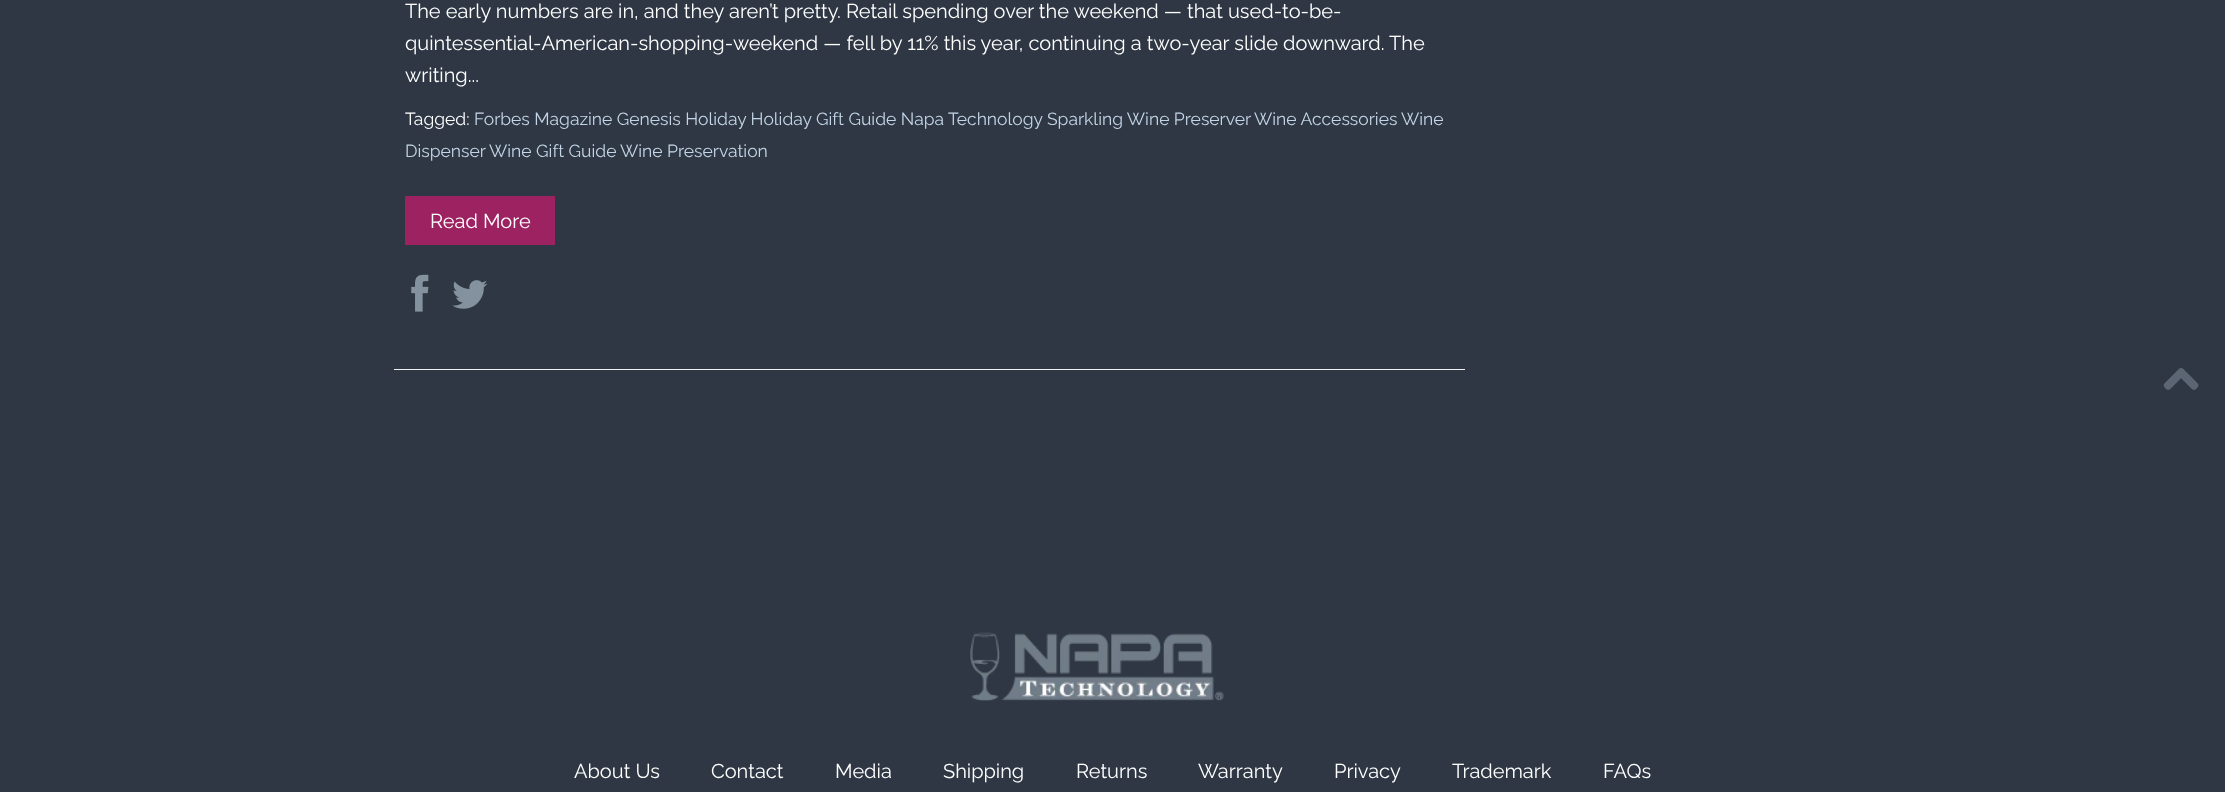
(async () => {
  const canvas = document.querySelector("canvas");
  canvas.width = 2225;
  canvas.height = 792;
  const ctx = canvas.getContext("2d");
  ctx.miterLimit = 4;
  ctx.fontKerning = "normal";
  async function loadImage(src) {
    const img = new Image();
    img.src = src;
    await img.decode();
    return img;
  }

  ctx.fillStyle = "#2f3744";
  ctx.fillRect(0, 0, 2225, 792);
  ctx.fillStyle = "#f0f0f0";
  ctx.fillRect(394, 369, 1071, 1);
  ctx.fillStyle = "#9d2262";
  ctx.fillRect(405, 196, 150, 49);
  ctx.drawImage(await loadImage("img/1.png"), 411, 274, 18, 38);
  ctx.drawImage(await loadImage("img/2.png"), 452, 280, 36, 29);
  ctx.drawImage(await loadImage("img/3.png"), 2163, 368, 36, 22);
  ctx.drawImage(await loadImage("img/4.png"), 970, 632, 254, 69);
  ctx.font = "20px Raleway";
  ctx.fillStyle = "#ffffff";
  for (const [text, x, y] of [
    ["The early numbers are in, and they aren’t pretty. Retail spending over the weekend — that used-to-be-", 405, 18],
    ["quintessential-American-shopping-weekend — fell by 11% this year, continuing a two-year slide downward. The", 405, 50],
    ["writing...", 405, 82],
  ]) {
    ctx.fillText(text, x, y);
  }
  ctx.font = "17.5px Raleway";
  ctx.fillText("Tagged:", 405, 125);
  ctx.fillStyle = "#c3d5e6";
  for (const [text, x, y] of [
    ["Forbes Magazine Genesis Holiday Holiday Gift Guide Napa Technology", 474, 125],
    ["Sparkling Wine Preserver", 1047, 125],
    ["Wine Accessories", 1254, 125],
    ["Wine", 1401, 125],
    ["Dispenser", 405, 157],
    ["Wine Gift Guide", 489, 157],
    ["Wine Preservation", 620, 157],
  ]) {
    ctx.fillText(text, x, y);
  }
  ctx.font = "20px Raleway";
  ctx.fillStyle = "#ffffff";
  for (const [text, x, y] of [
    ["Read More", 430, 228],
    ["About Us", 574, 778],
    ["Contact", 711, 778],
    ["Media", 835, 778],
    ["Shipping", 943, 778],
    ["Returns", 1076, 778],
    ["Warranty", 1198, 778],
    ["Privacy", 1334, 778],
    ["Trademark", 1452, 778],
    ["FAQs", 1603, 778],
  ]) {
    ctx.fillText(text, x, y);
  }
})();
